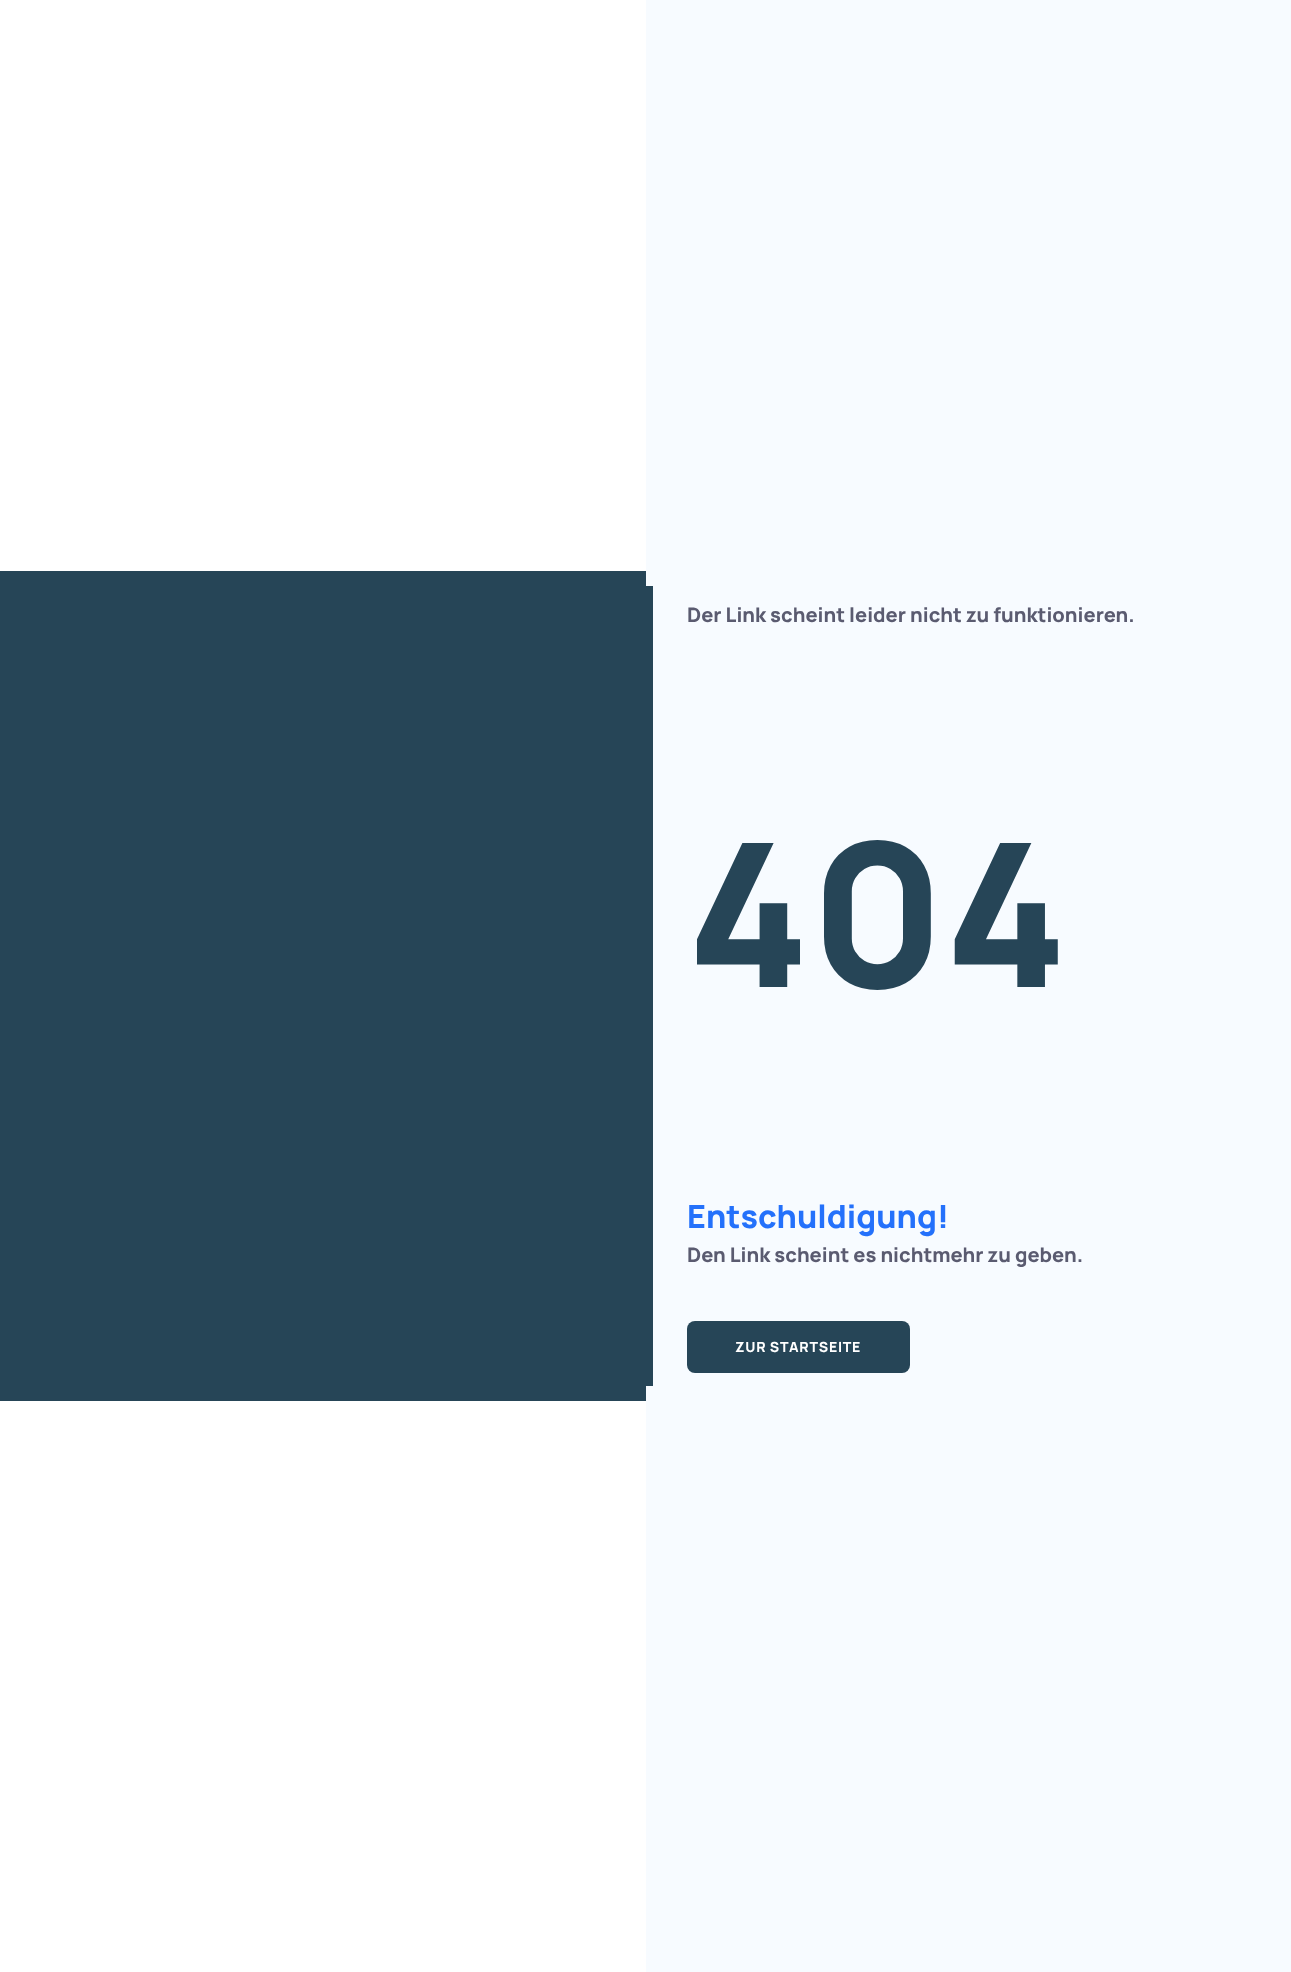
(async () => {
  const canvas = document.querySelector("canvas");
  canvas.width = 1291;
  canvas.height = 1972;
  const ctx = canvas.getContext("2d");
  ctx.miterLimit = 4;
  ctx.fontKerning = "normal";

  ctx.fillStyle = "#ffffff";
  ctx.fillRect(0, 0, 1291, 1972);
  for (const [x, y, w, h, color] of [
    [0, 571, 646, 830, "#264557"],
    [646, 0, 645, 1972, "#f7fbff"],
    [646, 586, 7, 800, "#264557"],
  ]) {
    ctx.fillStyle = color;
    ctx.fillRect(x, y, w, h);
  }
  ctx.beginPath();
  ctx.roundRect(687, 1321, 223, 52, 8);
  ctx.fill();
  ctx.font = "800 20px Manrope";
  ctx.fillStyle = "#5a5b70";
  ctx.fillText("Der Link scheint leider nicht zu funktionieren.", 687, 622);
  ctx.font = "800 200px Manrope";
  ctx.fillStyle = "#264557";
  ctx.fillText("404", 687, 987);
  ctx.font = "800 32px Manrope";
  ctx.fillStyle = "#2471fb";
  ctx.fillText("Entschuldigung!", 687, 1228);
  ctx.font = "800 20px Manrope";
  ctx.fillStyle = "#5a5b70";
  ctx.fillText("Den Link scheint es nichtmehr zu geben.", 687, 1262);
  ctx.letterSpacing = "0.75px";
  ctx.font = "800 14px Manrope";
  ctx.fillStyle = "#ffffff";
  ctx.fillText("ZUR STARTSEITE", 735, 1352);
})();
